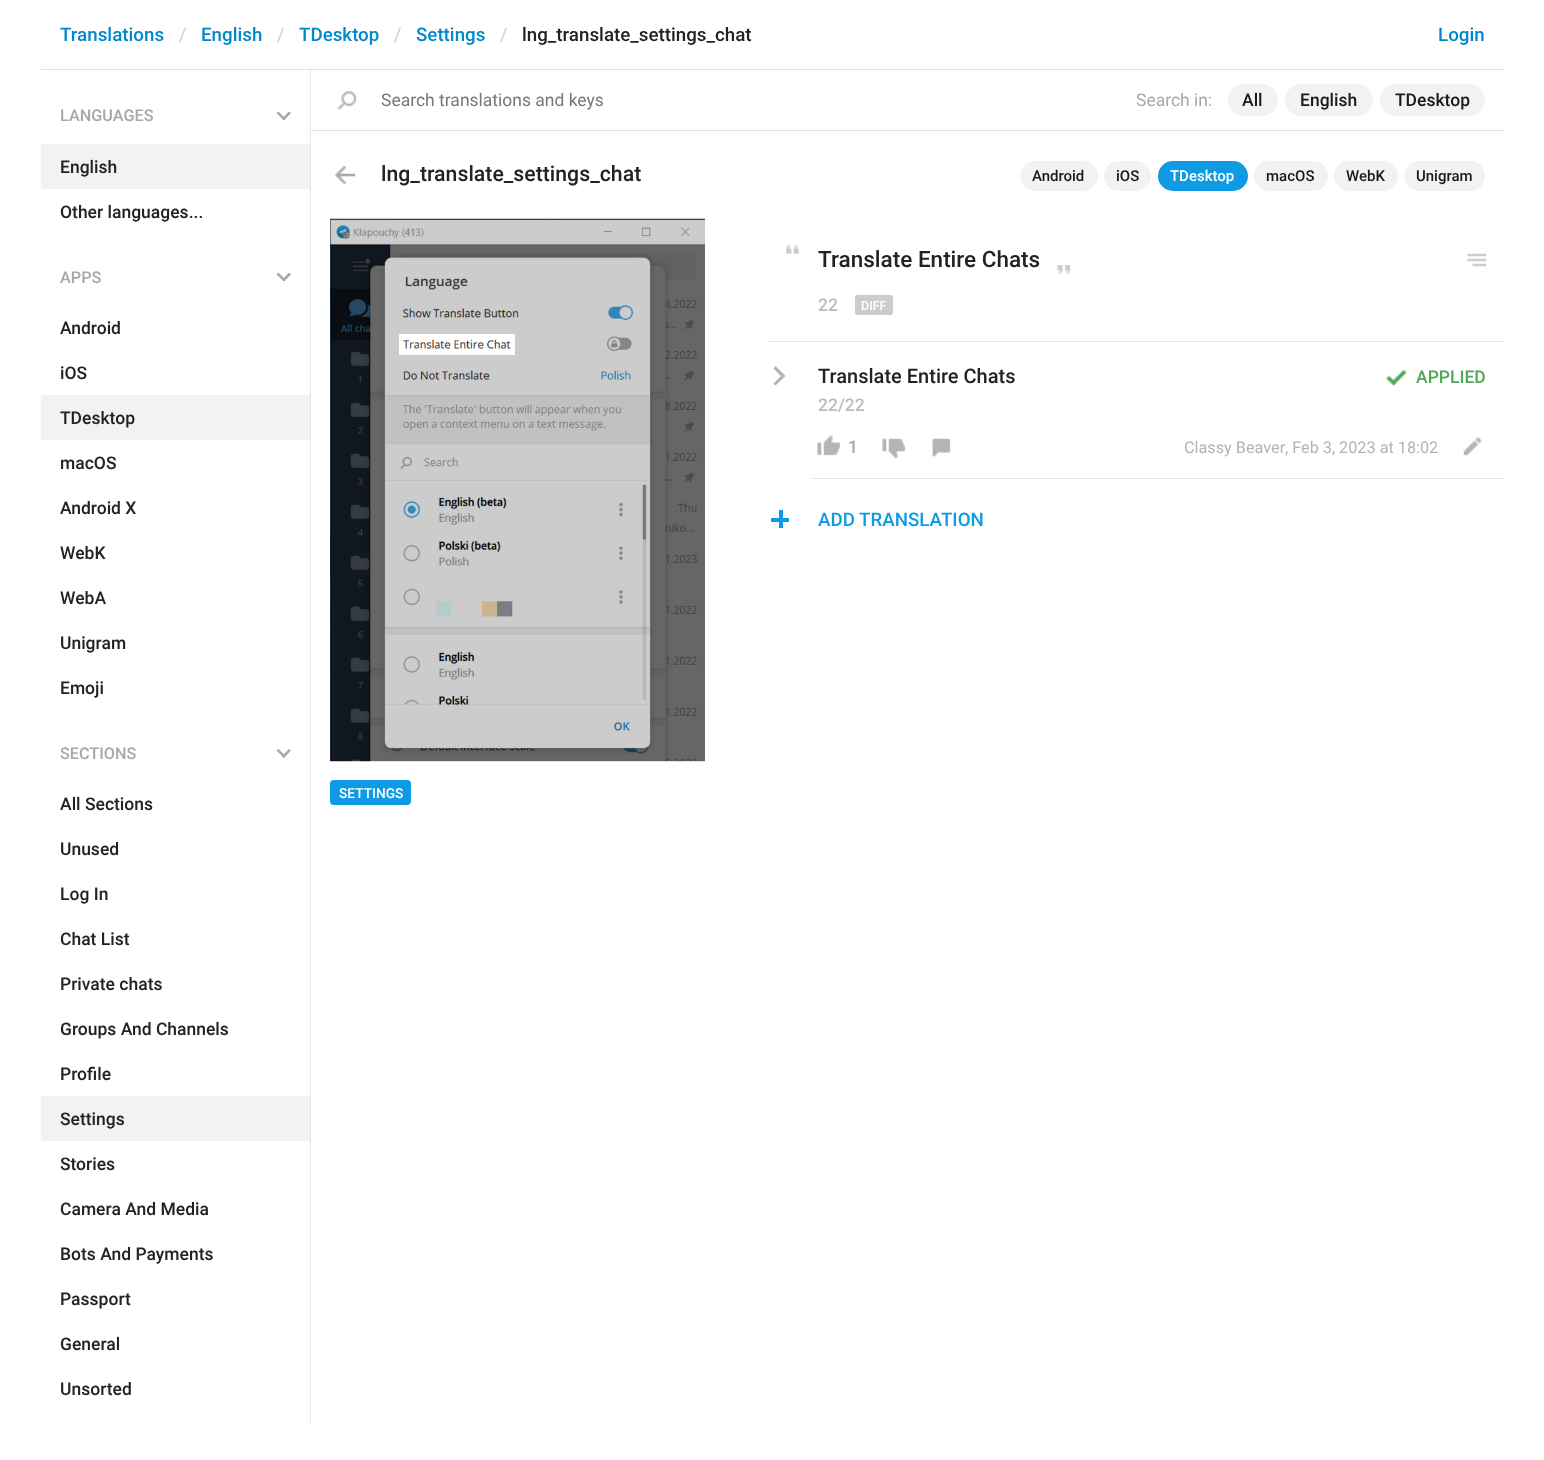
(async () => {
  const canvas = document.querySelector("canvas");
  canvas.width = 1544;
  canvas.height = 1460;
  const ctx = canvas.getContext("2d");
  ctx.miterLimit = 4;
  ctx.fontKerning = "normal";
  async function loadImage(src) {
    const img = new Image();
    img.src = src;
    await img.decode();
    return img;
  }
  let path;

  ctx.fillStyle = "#ffffff";
  ctx.fillRect(0, 0, 1544, 1460);
  ctx.fillStyle = "#e0e0e0";
  ctx.fillRect(41, 69, 1463, 1);
  ctx.fillRect(311, 130, 1193, 1);
  ctx.drawImage(await loadImage("img/1.png"), 337, 91, 20, 19);
  ctx.fillStyle = "#f2f2f2";
  ctx.beginPath();
  ctx.roundRect(1228, 84, 50, 32, 16);
  ctx.fill();
  ctx.beginPath();
  ctx.roundRect(1285, 84, 88, 32, 16);
  ctx.fill();
  ctx.beginPath();
  ctx.roundRect(1380, 84, 105, 32, 16);
  ctx.fill();
  ctx.fillStyle = "#a8a8a8";
  path = new Path2D("M284 120.5L276.5 113L278.5 111.5L285.5 118.5Z");
  ctx.fill(path);
  path = new Path2D("M284 120.5L282 118.5L289 111.5L291 113Z");
  ctx.fill(path);
  ctx.fillStyle = "#f2f2f2";
  ctx.fillRect(41, 144, 269, 45);
  ctx.fillStyle = "#a8a8a8";
  path = new Path2D("M284 281.5L276.5 274.5L278.5 272.5L285.5 280Z");
  ctx.fill(path);
  path = new Path2D("M284 281.5L282 280L289 272.5L291 274.5Z");
  ctx.fill(path);
  ctx.fillStyle = "#f2f2f2";
  ctx.fillRect(41, 395, 269, 45);
  ctx.fillStyle = "#a8a8a8";
  path = new Path2D("M284 758L276.5 750.5L278.5 749L285.5 756Z");
  ctx.fill(path);
  path = new Path2D("M284 758L282 756L289 749L291 750.5Z");
  ctx.fill(path);
  ctx.fillStyle = "#f2f2f2";
  ctx.fillRect(41, 1096, 269, 45);
  ctx.fillStyle = "#e7e7e7";
  ctx.fillRect(310, 70, 1, 1354);
  ctx.drawImage(await loadImage("img/2.png"), 335, 166, 21, 18);
  ctx.fillStyle = "#f2f2f2";
  ctx.beginPath();
  ctx.roundRect(1020, 161, 78, 30, 15);
  ctx.fill();
  ctx.beginPath();
  ctx.roundRect(1104, 161, 47, 30, 15);
  ctx.fill();
  ctx.fillStyle = "#0f9ae4";
  ctx.beginPath();
  ctx.roundRect(1158, 161, 90, 30, 15);
  ctx.fill();
  ctx.fillStyle = "#f2f2f2";
  ctx.beginPath();
  ctx.roundRect(1254, 161, 74, 30, 15);
  ctx.fill();
  ctx.beginPath();
  ctx.roundRect(1334, 161, 64, 30, 15);
  ctx.fill();
  ctx.beginPath();
  ctx.roundRect(1404, 161, 81, 30, 15);
  ctx.fill();
  ctx.drawImage(await loadImage("img/3.png"), 786, 245, 13, 9);
  ctx.drawImage(await loadImage("img/4.png"), 1057, 265, 14, 9);
  ctx.drawImage(await loadImage("img/5.png"), 1467, 253, 20, 14);
  ctx.fillStyle = "#cccccc";
  ctx.beginPath();
  ctx.roundRect(855, 295, 38, 20, 2.5);
  ctx.fill();
  ctx.fillStyle = "#e7e7e7";
  ctx.fillRect(768, 341, 736, 1);
  ctx.save();
  ctx.beginPath();
  ctx.rect(736, 343, 768, 137);
  ctx.clip();
  path = new Path2D("M811 478V479H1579V344H1504V478Z");
  ctx.fill(path);
  ctx.restore();
  ctx.fillStyle = "#b3b3b3";
  path = new Path2D("M781 376L773.5 368.5L775.5 366L785.5 376L775.5 385.5L773.5 383.5Z");
  ctx.fill(path);
  ctx.drawImage(await loadImage("img/6.png"), 817, 435, 23, 21);
  ctx.drawImage(await loadImage("img/7.png"), 882, 438, 23, 21);
  ctx.drawImage(await loadImage("img/8.png"), 932, 438, 19, 19);
  ctx.drawImage(await loadImage("img/9.png"), 1463, 437, 19, 19);
  ctx.drawImage(await loadImage("img/10.png"), 1386, 369, 21, 17);
  ctx.fillStyle = "#0f9ae4";
  ctx.fillRect(771, 518, 18, 4);
  ctx.fillRect(779, 510, 4, 18);
  ctx.drawImage(await loadImage("img/11.png"), 330, 218, 375, 544);
  ctx.drawImage(await loadImage("img/12.png"), 399, 334, 116, 21);
  ctx.beginPath();
  ctx.roundRect(330, 780, 81, 25, 4);
  ctx.fill();
  ctx.font = "500 18.75px Roboto";
  ctx.fillStyle = "#0088cc";
  ctx.fillText("Translations", 60, 41);
  ctx.fillStyle = "#d4d4d4";
  ctx.fillText("/", 179, 41);
  ctx.fillStyle = "#0088cc";
  ctx.fillText("English", 201, 41);
  ctx.fillStyle = "#d4d4d4";
  ctx.fillText("/", 277, 41);
  ctx.fillStyle = "#0088cc";
  ctx.fillText("TDesktop", 299, 41);
  ctx.fillStyle = "#d4d4d4";
  ctx.fillText("/", 394, 41);
  ctx.fillStyle = "#0088cc";
  ctx.fillText("Settings", 416, 41);
  ctx.fillStyle = "#d4d4d4";
  ctx.fillText("/", 500, 41);
  ctx.fillStyle = "#222222";
  ctx.fillText("lng_translate_settings_chat", 522, 41);
  ctx.fillStyle = "#0088cc";
  ctx.fillText("Login", 1438, 41);
  ctx.font = "17.5px Roboto";
  ctx.fillStyle = "#777777";
  ctx.fillText("Search translations and keys", 381, 106);
  ctx.fillStyle = "#a8a8a8";
  ctx.fillText("Search in:", 1136, 106);
  ctx.font = "500 17.5px Roboto";
  ctx.fillStyle = "#1a1a1a";
  for (const [text, x, y] of [
    ["All", 1242, 106],
    ["English", 1300, 106],
    ["TDesktop", 1395, 106],
  ]) {
    ctx.fillText(text, x, y);
  }
  ctx.font = "500 16.25px Roboto";
  ctx.fillStyle = "#a8a8a8";
  ctx.fillText("LANGUAGES", 60, 121);
  ctx.font = "500 17.5px Roboto";
  ctx.fillStyle = "#222222";
  ctx.fillText("English", 60, 173);
  ctx.fillText("Other languages...", 60, 218);
  ctx.font = "500 16.25px Roboto";
  ctx.fillStyle = "#a8a8a8";
  ctx.fillText("APPS", 60, 283);
  ctx.font = "500 17.5px Roboto";
  ctx.fillStyle = "#222222";
  for (const [text, x, y] of [
    ["Android", 60, 334],
    ["iOS", 60, 379],
    ["TDesktop", 60, 424],
    ["macOS", 60, 469],
    ["Android X", 60, 514],
    ["WebK", 60, 559],
    ["WebA", 60, 604],
    ["Unigram", 60, 649],
    ["Emoji", 60, 694],
  ]) {
    ctx.fillText(text, x, y);
  }
  ctx.font = "500 16.25px Roboto";
  ctx.fillStyle = "#a8a8a8";
  ctx.fillText("SECTIONS", 60, 759);
  ctx.font = "500 17.5px Roboto";
  ctx.fillStyle = "#222222";
  for (const [text, x, y] of [
    ["All Sections", 60, 810],
    ["Unused", 60, 855],
    ["Log In", 60, 900],
    ["Chat List", 60, 945],
    ["Private chats", 60, 990],
    ["Groups And Channels", 60, 1035],
    ["Profile", 60, 1080],
    ["Settings", 60, 1125],
    ["Stories", 60, 1170],
    ["Camera And Media", 60, 1215],
    ["Bots And Payments", 60, 1260],
    ["Passport", 60, 1305],
    ["General", 60, 1350],
    ["Unsorted", 60, 1395],
  ]) {
    ctx.fillText(text, x, y);
  }
  ctx.font = "500 21.25px Roboto";
  ctx.fillText("lng_translate_settings_chat", 381, 181);
  ctx.font = "500 15px Roboto";
  ctx.fillStyle = "#1a1a1a";
  ctx.fillText("Android", 1032, 181);
  ctx.fillText("iOS", 1116, 181);
  ctx.fillStyle = "#ffffff";
  ctx.fillText("TDesktop", 1170, 181);
  ctx.fillStyle = "#1a1a1a";
  for (const [text, x, y] of [
    ["macOS", 1266, 181],
    ["WebK", 1346, 181],
    ["Unigram", 1416, 181],
  ]) {
    ctx.fillText(text, x, y);
  }
  ctx.font = "500 22.5px Roboto";
  ctx.fillStyle = "#222222";
  ctx.fillText("Translate Entire Chats", 818, 267);
  ctx.font = "500 17.5px Roboto";
  ctx.fillStyle = "#bbbbbb";
  ctx.fillText("22", 818, 311);
  ctx.font = "500 12.5px Roboto";
  ctx.fillStyle = "#ffffff";
  ctx.fillText("DIFF", 861, 310);
  ctx.font = "500 20px Roboto";
  ctx.fillStyle = "#222222";
  ctx.fillText("Translate Entire Chats", 818, 383);
  ctx.font = "500 17.5px Roboto";
  ctx.fillStyle = "#bbbbbb";
  ctx.fillText("22/22", 818, 411);
  ctx.fillStyle = "#a8a8a8";
  ctx.fillText("1", 848, 453);
  ctx.font = "16.25px Roboto";
  ctx.fillStyle = "#b3b3b3";
  ctx.fillText("Classy Beaver", 1184, 453);
  ctx.fillText(", Feb 3, 2023 at 18:02", 1285, 453);
  ctx.font = "500 17.5px Roboto";
  ctx.fillStyle = "#51a657";
  ctx.fillText("APPLIED", 1416, 383);
  ctx.font = "500 18.75px Roboto";
  ctx.fillStyle = "#0f9ae4";
  ctx.fillText("ADD TRANSLATION", 818, 526);
  ctx.font = "500 13.75px Roboto";
  ctx.fillStyle = "#ffffff";
  ctx.fillText("SETTINGS", 339, 798);
})();
